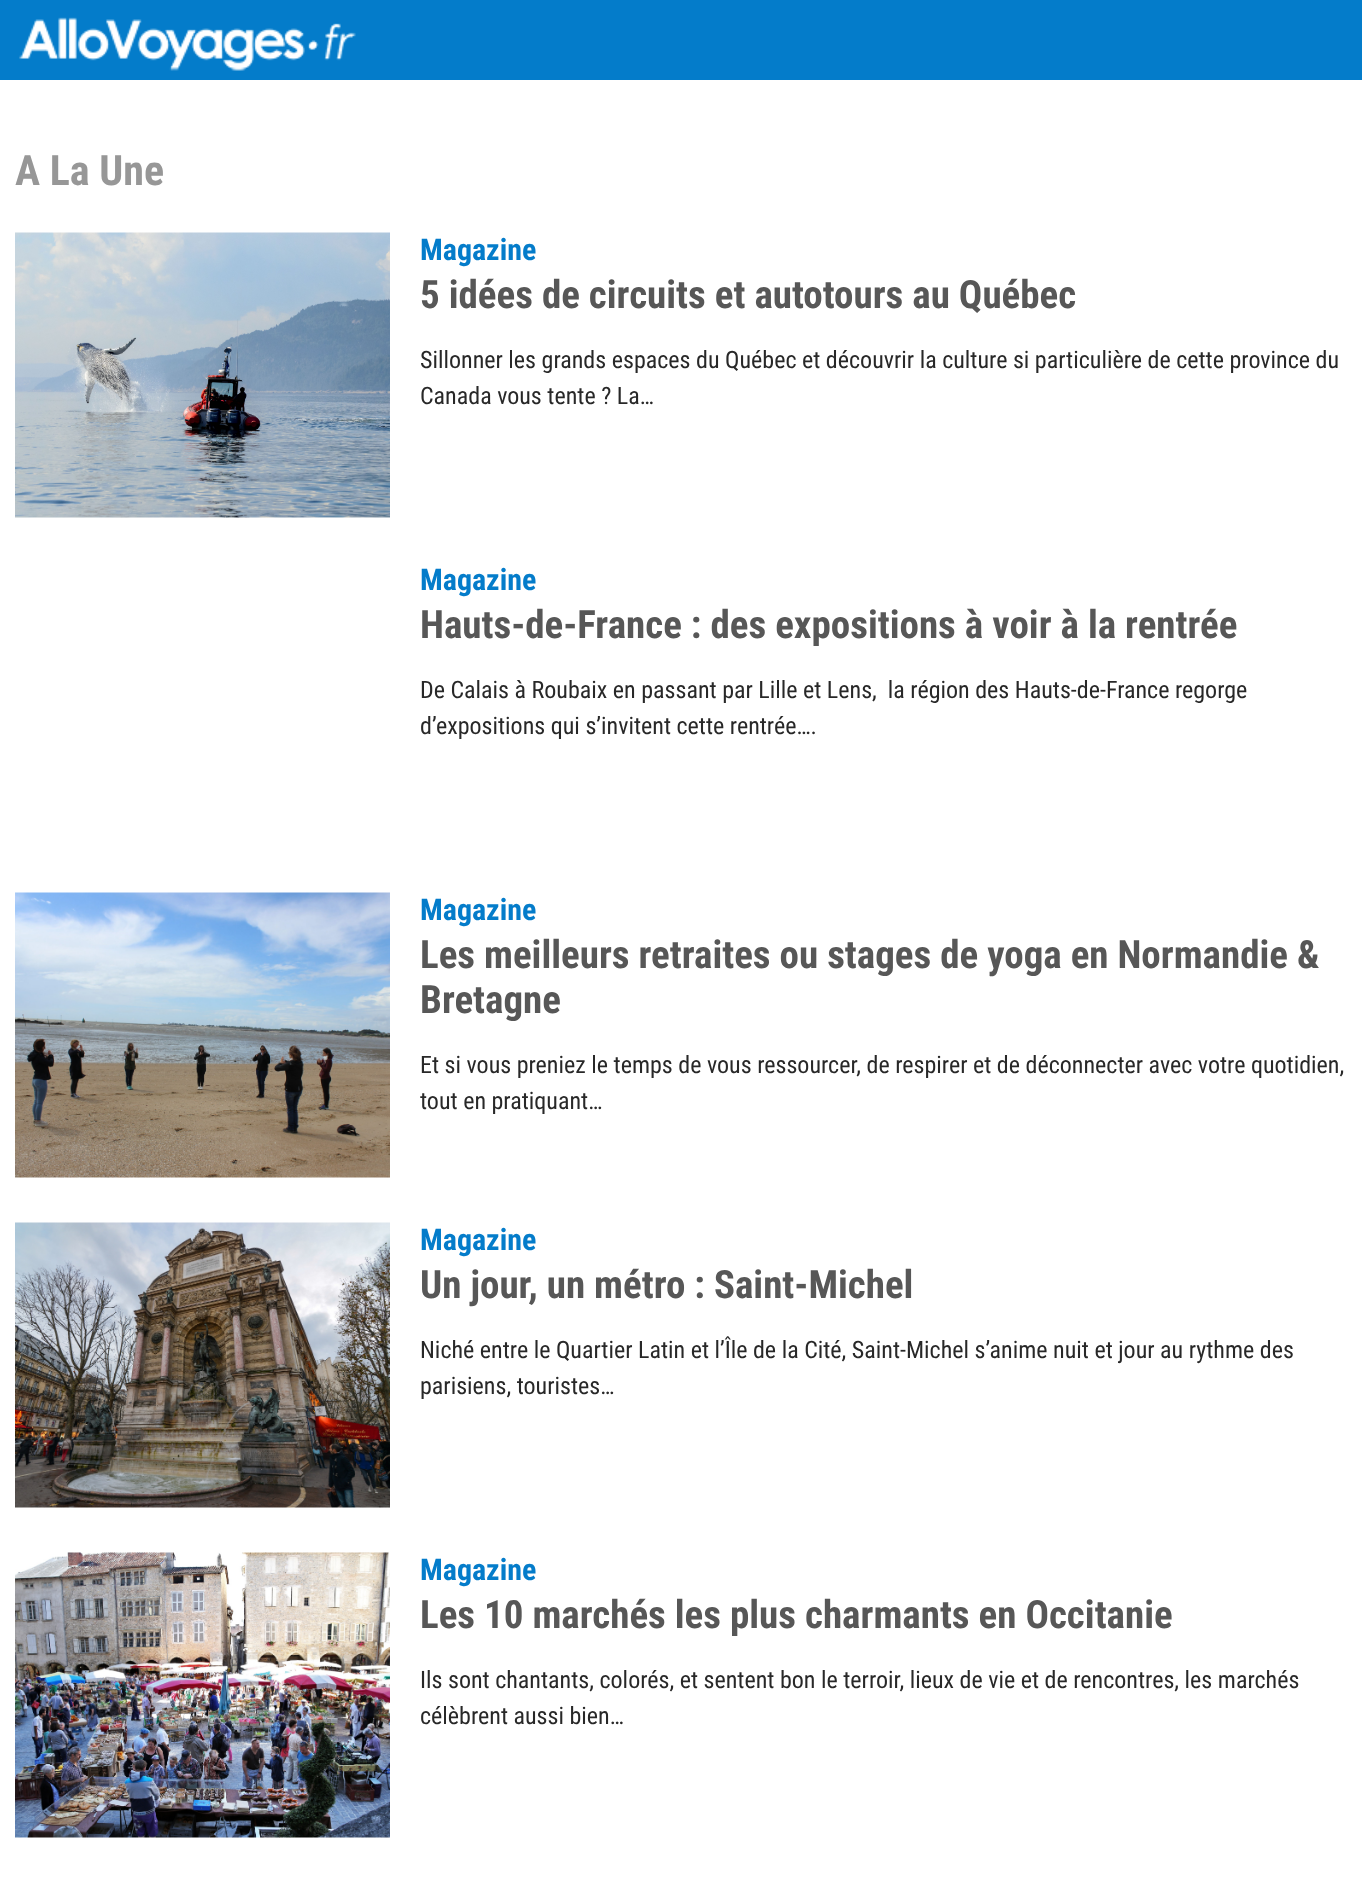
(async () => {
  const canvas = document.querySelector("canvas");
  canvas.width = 1362;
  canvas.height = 1879;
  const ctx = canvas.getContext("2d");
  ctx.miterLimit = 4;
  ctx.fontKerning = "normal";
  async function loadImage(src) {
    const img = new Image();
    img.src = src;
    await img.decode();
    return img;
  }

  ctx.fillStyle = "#ffffff";
  ctx.fillRect(0, 0, 1362, 1879);
  ctx.fillStyle = "#047cca";
  ctx.fillRect(0, 0, 1362, 80);
  ctx.drawImage(await loadImage("img/1.png"), 19, 17, 337, 54);
  ctx.drawImage(await loadImage("img/2.png"), 15, 232, 375, 286);
  ctx.drawImage(await loadImage("img/3.png"), 15, 892, 375, 286);
  ctx.drawImage(await loadImage("img/4.png"), 15, 1222, 375, 286);
  ctx.drawImage(await loadImage("img/5.png"), 15, 1552, 375, 286);
  ctx.font = "bold 42px Roboto Condensed";
  ctx.fillStyle = "#979797";
  ctx.fillText("A La Une", 15, 185);
  ctx.font = "bold 30px Roboto Condensed";
  ctx.fillStyle = "#047cca";
  ctx.fillText("Magazine", 420, 260);
  ctx.font = "bold 39px Roboto Condensed";
  ctx.fillStyle = "#575757";
  ctx.fillText("5 idées de circuits et autotours au Québec", 420, 308);
  ctx.font = "24px Roboto Condensed";
  ctx.fillStyle = "#282828";
  ctx.fillText("Sillonner les grands espaces du Québec et découvrir la culture si particulière de cette province du", 420, 368);
  ctx.fillText("Canada vous tente ? La…", 420, 404);
  ctx.font = "bold 30px Roboto Condensed";
  ctx.fillStyle = "#047cca";
  ctx.fillText("Magazine", 420, 590);
  ctx.font = "bold 39px Roboto Condensed";
  ctx.fillStyle = "#575757";
  ctx.fillText("Hauts-de-France : des expositions à voir à la rentrée", 420, 638);
  ctx.font = "24px Roboto Condensed";
  ctx.fillStyle = "#282828";
  ctx.fillText("De Calais à Roubaix en passant par Lille et Lens,  la région des Hauts-de-France regorge", 420, 698);
  ctx.fillText("d’expositions qui s’invitent cette rentrée….", 420, 734);
  ctx.font = "bold 30px Roboto Condensed";
  ctx.fillStyle = "#047cca";
  ctx.fillText("Magazine", 420, 920);
  ctx.font = "bold 39px Roboto Condensed";
  ctx.fillStyle = "#575757";
  ctx.fillText("Les meilleurs retraites ou stages de yoga en Normandie &", 420, 968);
  ctx.fillText("Bretagne", 420, 1013);
  ctx.font = "24px Roboto Condensed";
  ctx.fillStyle = "#282828";
  ctx.fillText("Et si vous preniez le temps de vous ressourcer, de respirer et de déconnecter avec votre quotidien,", 420, 1073);
  ctx.fillText("tout en pratiquant…", 420, 1109);
  ctx.font = "bold 30px Roboto Condensed";
  ctx.fillStyle = "#047cca";
  ctx.fillText("Magazine", 420, 1250);
  ctx.font = "bold 39px Roboto Condensed";
  ctx.fillStyle = "#575757";
  ctx.fillText("Un jour, un métro : Saint-Michel", 420, 1298);
  ctx.font = "24px Roboto Condensed";
  ctx.fillStyle = "#282828";
  ctx.fillText("Niché entre le Quartier Latin et l’Île de la Cité, Saint-Michel s’anime nuit et jour au rythme des", 420, 1358);
  ctx.fillText("parisiens, touristes…", 420, 1394);
  ctx.font = "bold 30px Roboto Condensed";
  ctx.fillStyle = "#047cca";
  ctx.fillText("Magazine", 420, 1580);
  ctx.font = "bold 39px Roboto Condensed";
  ctx.fillStyle = "#575757";
  ctx.fillText("Les 10 marchés les plus charmants en Occitanie", 420, 1628);
  ctx.font = "24px Roboto Condensed";
  ctx.fillStyle = "#282828";
  ctx.fillText("Ils sont chantants, colorés, et sentent bon le terroir, lieux de vie et de rencontres, les marchés", 420, 1688);
  ctx.fillText("célèbrent aussi bien…", 420, 1724);
})();
